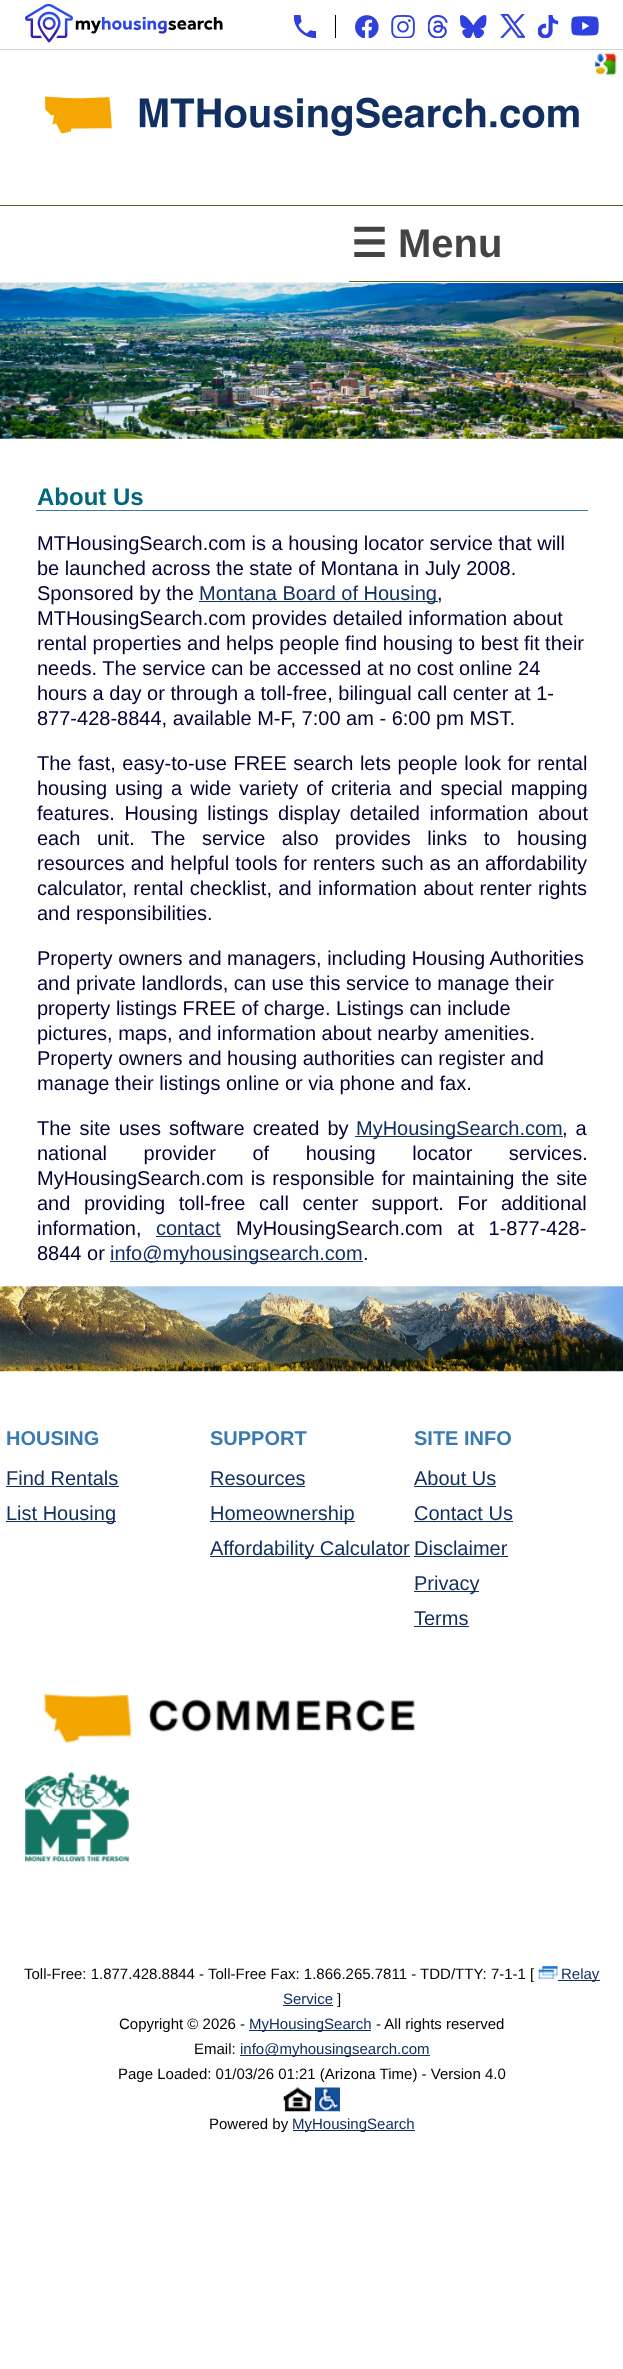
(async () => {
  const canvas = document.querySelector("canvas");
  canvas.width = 623;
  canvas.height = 2369;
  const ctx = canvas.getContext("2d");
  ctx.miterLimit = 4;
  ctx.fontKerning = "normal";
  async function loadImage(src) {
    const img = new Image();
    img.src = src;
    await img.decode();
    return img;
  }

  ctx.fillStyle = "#ffffff";
  ctx.fillRect(0, 0, 623, 2369);
  ctx.fillStyle = "#d3d3d3";
  ctx.fillRect(0, 49, 623, 1);
  ctx.drawImage(await loadImage("img/1.png"), 25, 4, 198, 39);
  ctx.fillStyle = "#000000";
  ctx.fillRect(335, 15, 1, 23);
  ctx.drawImage(await loadImage("img/2.png"), 294, 15, 22, 23);
  ctx.drawImage(await loadImage("img/3.png"), 355, 15, 24, 23);
  ctx.drawImage(await loadImage("img/4.png"), 391, 15, 24, 23);
  ctx.drawImage(await loadImage("img/5.png"), 428, 15, 20, 23);
  ctx.drawImage(await loadImage("img/6.png"), 460, 15, 27, 23);
  ctx.drawImage(await loadImage("img/7.png"), 500, 14, 25, 24);
  ctx.drawImage(await loadImage("img/8.png"), 538, 15, 21, 23);
  ctx.drawImage(await loadImage("img/9.png"), 571, 16, 28, 20);
  ctx.drawImage(await loadImage("img/10.png"), 594, 53, 23, 23);
  ctx.drawImage(await loadImage("img/11.png"), 45, 96, 534, 40);
  ctx.fillStyle = "#57641f";
  ctx.fillRect(0, 205, 623, 1);
  ctx.drawImage(await loadImage("img/12.png"), 0, 282, 623, 157);
  for (const [x, y, w, h, color] of [
    [349, 282, 274, 1, "#ffffff"],
    [349, 281, 274, 1, "#57641f"],
    [36, 510, 552, 1, "#3a7ab2"],
    [199, 601, 239, 1, "#112f60"],
    [355, 1136, 208, 1, "#112f60"],
    [156, 1236, 65, 1, "#112f60"],
    [110, 1261, 253, 1, "#112f60"],
  ]) {
    ctx.fillStyle = color;
    ctx.fillRect(x, y, w, h);
  }
  ctx.drawImage(await loadImage("img/13.png"), 0, 1286, 623, 86);
  for (const [x, y, w, h, color] of [
    [6, 1486, 113, 1, "#112f60"],
    [6, 1521, 110, 1, "#112f60"],
    [210, 1486, 95, 1, "#112f60"],
    [210, 1521, 145, 1, "#112f60"],
    [210, 1556, 200, 1, "#112f60"],
    [414, 1486, 82, 1, "#112f60"],
    [414, 1521, 99, 1, "#112f60"],
    [414, 1556, 94, 1, "#112f60"],
    [414, 1591, 65, 1, "#112f60"],
    [414, 1626, 55, 1, "#112f60"],
  ]) {
    ctx.fillStyle = color;
    ctx.fillRect(x, y, w, h);
  }
  ctx.drawImage(await loadImage("img/14.png"), 43, 1693, 373, 50);
  ctx.drawImage(await loadImage("img/15.png"), 25, 1772, 104, 90);
  ctx.drawImage(await loadImage("img/16.png"), 538, 1966, 20, 13);
  for (const [x, y, w, h, color] of [
    [558, 1980, 42, 1, "#112f60"],
    [283, 2005, 50, 1, "#112f60"],
    [249, 2030, 122, 1, "#112f60"],
    [240, 2055, 190, 1, "#112f60"],
  ]) {
    ctx.fillStyle = color;
    ctx.fillRect(x, y, w, h);
  }
  ctx.drawImage(await loadImage("img/17.png"), 283, 2087, 29, 25);
  ctx.drawImage(await loadImage("img/18.png"), 315, 2087, 25, 25);
  ctx.fillRect(293, 2130, 122, 1);
  ctx.font = "bold 40px DejaVu Sans";
  ctx.fillStyle = "#444444";
  ctx.fillText("☰", 351, 257);
  ctx.font = "bold 40px Liberation Sans";
  ctx.fillText("Menu", 398, 257);
  ctx.font = "bold 24px Liberation Sans";
  ctx.fillStyle = "#00677f";
  ctx.fillText("About Us", 37, 505);
  ctx.font = "20px Liberation Sans";
  ctx.fillStyle = "#000033";
  for (const [text, x, y] of [
    ["MTHousingSearch.com is a housing locator service that will", 37, 550],
    ["be launched across the state of Montana in July 2008.", 37, 575],
    ["Sponsored by the", 37, 600],
  ]) {
    ctx.fillText(text, x, y);
  }
  ctx.fillStyle = "#112f60";
  ctx.fillText("Montana Board of Housing", 199, 600);
  ctx.fillStyle = "#000033";
  for (const [text, x, y] of [
    [",", 437, 600],
    ["MTHousingSearch.com provides detailed information about", 37, 625],
    ["rental properties and helps people find housing to best fit their", 37, 650],
    ["needs. The service can be accessed at no cost online 24", 37, 675],
    ["hours a day or through a toll-free, bilingual call center at 1-", 37, 700],
    ["877-428-8844, available M-F, 7:00 am - 6:00 pm MST.", 37, 725],
  ]) {
    ctx.fillText(text, x, y);
  }
  ctx.wordSpacing = "1px";
  ctx.fillText("The fast, easy-to-use FREE search lets people look for rental", 37, 770);
  ctx.wordSpacing = "2.5px";
  ctx.fillText("housing using a wide variety of criteria and special mapping", 37, 795);
  ctx.wordSpacing = "4px";
  ctx.fillText("features. Housing listings display detailed information about", 37, 820);
  ctx.wordSpacing = "11px";
  ctx.fillText("each unit. The service also provides links to housing", 37, 845);
  ctx.wordSpacing = "0.5px";
  ctx.fillText("resources and helpful tools for renters such as an affordability", 37, 870);
  ctx.wordSpacing = "0.75px";
  ctx.fillText("calculator, rental checklist, and information about renter rights", 37, 895);
  ctx.wordSpacing = "0px";
  for (const [text, x, y] of [
    ["and responsibilities.", 37, 920],
    ["Property owners and managers, including Housing Authorities", 37, 965],
    ["and private landlords, can use this service to manage their", 37, 990],
    ["property listings FREE of charge. Listings can include", 37, 1015],
    ["pictures, maps, and information about nearby amenities.", 37, 1040],
    ["Property owners and housing authorities can register and", 37, 1065],
    ["manage their listings online or via phone and fax.", 37, 1090],
  ]) {
    ctx.fillText(text, x, y);
  }
  ctx.wordSpacing = "2.5px";
  ctx.fillText("The site uses software created by", 37, 1135);
  ctx.wordSpacing = "0px";
  ctx.fillStyle = "#112f60";
  ctx.fillText("MyHousingSearch.com", 356, 1135);
  ctx.wordSpacing = "2.5px";
  ctx.fillStyle = "#000033";
  ctx.fillText(", a", 562, 1135);
  ctx.wordSpacing = "31px";
  ctx.fillText("national provider of housing locator services.", 37, 1160);
  ctx.wordSpacing = "1.5px";
  ctx.fillText("MyHousingSearch.com is responsible for maintaining the site", 37, 1185);
  ctx.wordSpacing = "8px";
  ctx.fillText("and providing toll-free call center support. For additional", 37, 1210);
  ctx.wordSpacing = "0px";
  ctx.fillText("information,", 37, 1235);
  ctx.fillStyle = "#112f60";
  ctx.fillText("contact", 156, 1235);
  ctx.wordSpacing = "9px";
  ctx.fillStyle = "#000033";
  ctx.fillText("MyHousingSearch.com at 1-877-428-", 236, 1235);
  ctx.wordSpacing = "0px";
  ctx.fillText("8844 or", 37, 1260);
  ctx.fillStyle = "#112f60";
  ctx.fillText("info@myhousingsearch.com", 110, 1260);
  ctx.fillStyle = "#000033";
  ctx.fillText(".", 363, 1260);
  ctx.font = "bold 20px Liberation Sans";
  ctx.fillStyle = "#3a7ab2";
  ctx.fillText("HOUSING", 6, 1445);
  ctx.font = "20px Liberation Sans";
  ctx.fillStyle = "#112f60";
  ctx.fillText("Find Rentals", 6, 1485);
  ctx.fillText("List Housing", 6, 1520);
  ctx.font = "bold 20px Liberation Sans";
  ctx.fillStyle = "#3a7ab2";
  ctx.fillText("SUPPORT", 210, 1445);
  ctx.font = "20px Liberation Sans";
  ctx.fillStyle = "#112f60";
  for (const [text, x, y] of [
    ["Resources", 210, 1485],
    ["Homeownership", 210, 1520],
    ["Affordability Calculator", 210, 1555],
  ]) {
    ctx.fillText(text, x, y);
  }
  ctx.font = "bold 20px Liberation Sans";
  ctx.fillStyle = "#3a7ab2";
  ctx.fillText("SITE INFO", 414, 1445);
  ctx.font = "20px Liberation Sans";
  ctx.fillStyle = "#112f60";
  for (const [text, x, y] of [
    ["About Us", 414, 1485],
    ["Contact Us", 414, 1520],
    ["Disclaimer", 414, 1555],
    ["Privacy", 414, 1590],
    ["Terms", 414, 1625],
  ]) {
    ctx.fillText(text, x, y);
  }
  ctx.font = "15px Liberation Sans";
  ctx.fillStyle = "#000000";
  ctx.fillText("Toll-Free: 1.877.428.8844 - Toll-Free Fax: 1.866.265.7811 - TDD/TTY: 7-1-1 [", 24, 1979);
  ctx.fillStyle = "#112f60";
  ctx.fillText("Relay", 561, 1979);
  ctx.fillText("Service", 283, 2004);
  ctx.fillStyle = "#000000";
  ctx.fillText("]", 337, 2004);
  ctx.fillText("Copyright © 2026 -", 119, 2029);
  ctx.fillStyle = "#112f60";
  ctx.fillText("MyHousingSearch", 249, 2029);
  ctx.fillStyle = "#000000";
  ctx.fillText("- All rights reserved", 376, 2029);
  ctx.fillText("Email:", 194, 2054);
  ctx.fillStyle = "#112f60";
  ctx.fillText("info@myhousingsearch.com", 240, 2054);
  ctx.fillStyle = "#000000";
  ctx.fillText("Page Loaded: 01/03/26 01:21 (Arizona Time) - Version 4.0", 118, 2079);
  ctx.fillText("Powered by", 209, 2129);
  ctx.fillStyle = "#112f60";
  ctx.fillText("MyHousingSearch", 292, 2129);
})();
